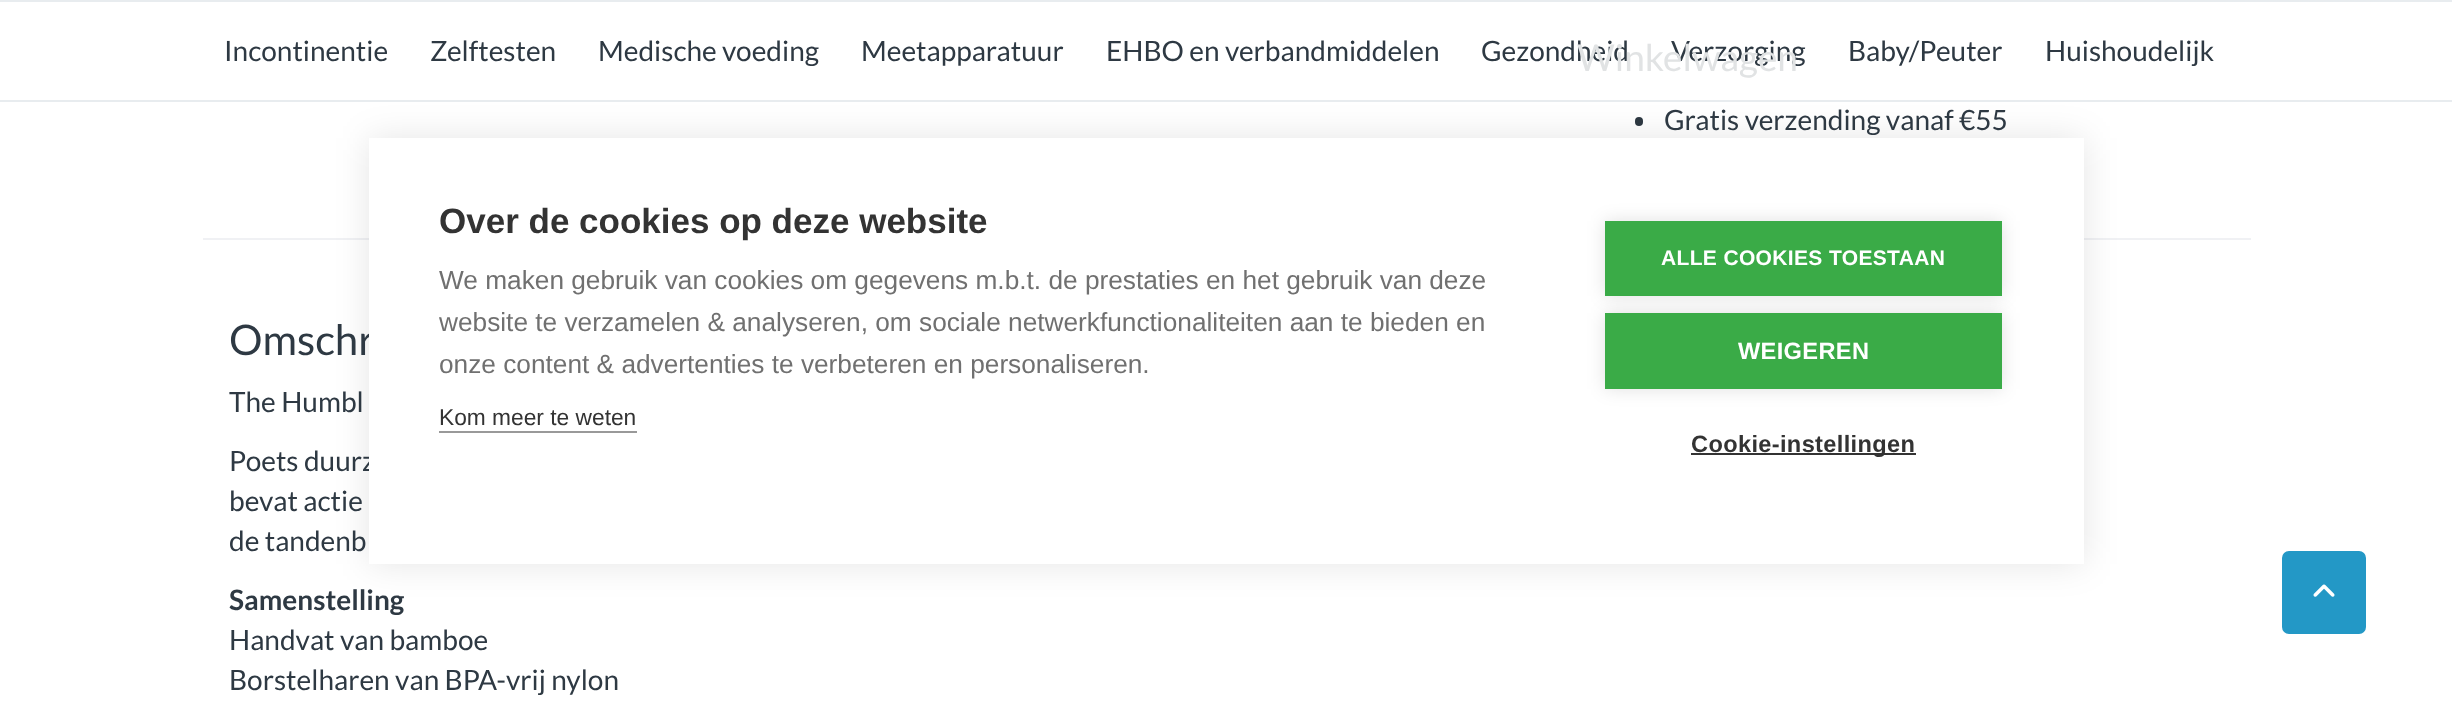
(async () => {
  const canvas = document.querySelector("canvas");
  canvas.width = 2452;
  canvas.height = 720;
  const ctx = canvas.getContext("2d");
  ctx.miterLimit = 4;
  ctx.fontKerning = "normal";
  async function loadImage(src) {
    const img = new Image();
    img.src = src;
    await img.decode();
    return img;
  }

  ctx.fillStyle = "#ffffff";
  ctx.fillRect(0, 0, 2452, 720);
  ctx.fillStyle = "#e8ecef";
  ctx.fillRect(0, 0, 2452, 2);
  ctx.fillRect(0, 100, 2452, 2);
  ctx.fillStyle = "#2e3943";
  ctx.beginPath();
  ctx.roundRect(1635, 117, 8, 9, 4);
  ctx.fill();
  ctx.fillStyle = "#f0f1f4";
  ctx.fillRect(203, 238, 2048, 2);
  ctx.fillStyle = "rgba(0, 0, 0, 0.1)";
  ctx.filter = "blur(17.5px)";
  ctx.beginPath();
  ctx.rect(369, 138, 1715, 426);
  ctx.fill();
  ctx.filter = "none";
  ctx.fillStyle = "#2398c6";
  ctx.beginPath();
  ctx.roundRect(2284, 553, 80, 79, 5);
  ctx.fill();
  ctx.strokeStyle = "#2398c6";
  ctx.lineWidth = 4;
  ctx.stroke();
  ctx.drawImage(await loadImage("img/1.png"), 2313, 584, 22, 13);
  ctx.font = "28px Lato";
  ctx.fillStyle = "#2e3943";
  for (const [text, x, y] of [
    ["Incontinentie", 224, 61],
    ["Zelftesten", 430, 61],
    ["Medische voeding", 598, 61],
    ["Meetapparatuur", 861, 61],
    ["EHBO en verbandmiddelen", 1106, 61],
    ["Gezondheid", 1481, 61],
    ["Verzorging", 1671, 61],
    ["Baby/Peuter", 1848, 61],
    ["Huishoudelijk", 2045, 61],
  ]) {
    ctx.fillText(text, x, y);
  }
  ctx.font = "37px Lato";
  ctx.fillStyle = "#e1e3e4";
  ctx.fillText("Winkelwagen", 1577, 71);
  ctx.font = "28px Lato";
  ctx.fillStyle = "#2e3943";
  ctx.fillText("Gratis verzending vanaf €55", 1664, 130);
  ctx.font = "42px Lato";
  ctx.fillText("Omschr", 229, 355);
  ctx.font = "28px Lato";
  for (const [text, x, y] of [
    ["The Humbl", 229, 412],
    ["Poets duurz", 229, 471],
    ["bevat actie", 229, 511],
    ["de tandenb", 229, 551],
  ]) {
    ctx.fillText(text, x, y);
  }
  ctx.font = "bold 28px Lato";
  ctx.fillText("Samenstelling", 229, 610);
  ctx.font = "28px Lato";
  ctx.fillText("Handvat van bamboe", 229, 650);
  ctx.fillText("Borstelharen van BPA-vrij nylon", 229, 690);
  ctx.fillStyle = "#ffffff";
  ctx.fillRect(369, 138, 1715, 426);
  ctx.font = "bold 35px Liberation Sans";
  ctx.fillStyle = "#333333";
  ctx.fillText("Over de cookies op deze website", 439, 233);
  ctx.font = "26.25px Liberation Sans";
  ctx.fillStyle = "#707070";
  for (const [text, x, y] of [
    ["We maken gebruik van cookies om gegevens m.b.t. de prestaties en het gebruik van deze", 439, 289],
    ["website te verzamelen & analyseren, om sociale netwerkfunctionaliteiten aan te bieden en", 439, 331],
    ["onze content & advertenties te verbeteren en personaliseren.", 439, 373],
  ]) {
    ctx.fillText(text, x, y);
  }
  ctx.font = "22.75px Liberation Sans";
  ctx.fillStyle = "#333333";
  ctx.fillText("Kom meer te weten", 439, 425);
  ctx.fillStyle = "#999999";
  ctx.fillRect(439, 431, 198, 2);
  ctx.fillStyle = "rgba(0, 0, 0, 0.12)";
  ctx.filter = "blur(9px)";
  ctx.beginPath();
  ctx.rect(1605, 221, 397, 75);
  ctx.fill();
  ctx.filter = "none";
  ctx.fillStyle = "#3aab47";
  ctx.fillRect(1605, 221, 397, 75);
  ctx.letterSpacing = "0.35px";
  ctx.font = "bold 21px Liberation Sans";
  ctx.fillStyle = "#ffffff";
  ctx.fillText("ALLE COOKIES TOESTAAN", 1661, 265);
  ctx.fillStyle = "rgba(0, 0, 0, 0.12)";
  ctx.filter = "blur(9px)";
  ctx.beginPath();
  ctx.rect(1605, 313, 397, 76);
  ctx.fill();
  ctx.filter = "none";
  ctx.fillStyle = "#3aab47";
  ctx.fillRect(1605, 313, 397, 76);
  ctx.font = "bold 23.6px Liberation Sans";
  ctx.fillStyle = "#ffffff";
  ctx.fillText("WEIGEREN", 1738, 359);
  ctx.fillStyle = "#333333";
  ctx.fillRect(1691, 453, 225, 2);
  ctx.fillText("Cookie-instellingen", 1691, 452);
})();
